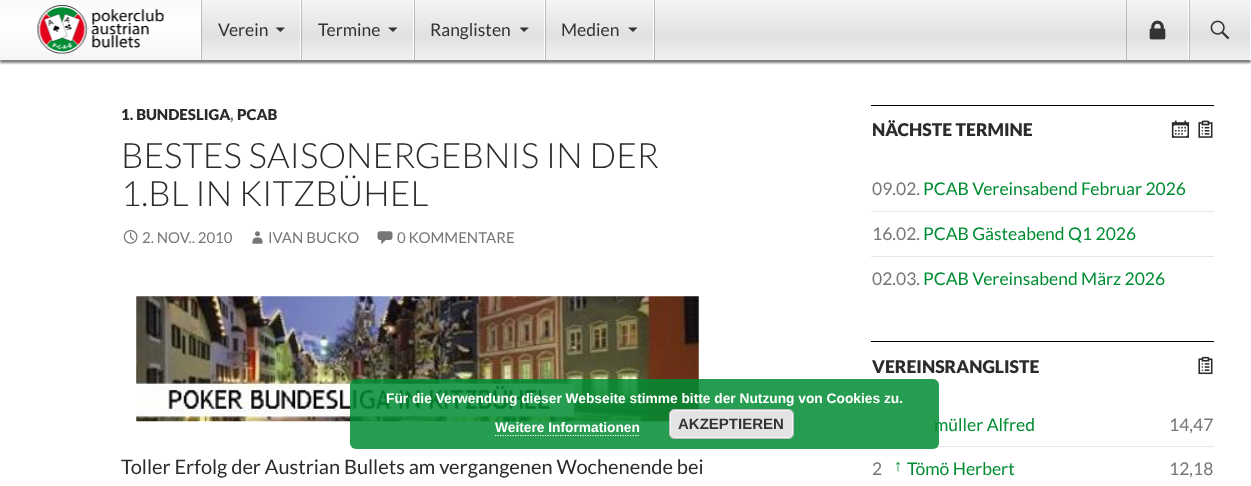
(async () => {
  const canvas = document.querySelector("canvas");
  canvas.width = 1251;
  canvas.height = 486;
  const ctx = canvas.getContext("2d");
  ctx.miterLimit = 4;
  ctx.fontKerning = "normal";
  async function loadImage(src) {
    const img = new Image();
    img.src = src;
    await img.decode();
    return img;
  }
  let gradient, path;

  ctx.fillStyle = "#ffffff";
  ctx.fillRect(0, 0, 1251, 486);
  ctx.fillStyle = "rgba(0, 0, 0, 0.5)";
  ctx.filter = "blur(1px)";
  ctx.beginPath();
  ctx.rect(0, 3, 1251, 60);
  ctx.fill();
  ctx.filter = "none";
  gradient = ctx.createLinearGradient(626, 0, 626, 60);
  gradient.addColorStop(0, "#f5f5f5");
  gradient.addColorStop(0.6, "#e1e1e1");
  gradient.addColorStop(1, "#f0f0f0");
  ctx.fillStyle = gradient;
  ctx.fillRect(201, 0, 1049, 60);
  gradient = ctx.createLinearGradient(101, 0, 101, 60);
  gradient.addColorStop(0, "#fafafa");
  gradient.addColorStop(0.4, "#ffffff");
  gradient.addColorStop(1, "#f5f5f5");
  ctx.fillStyle = gradient;
  ctx.fillRect(0, 0, 200, 60);
  ctx.drawImage(await loadImage("img/1.png"), 37, 5, 127, 49);
  for (const [x, y, w, h, color] of [
    [200, 0, 1, 60, "#ffffff"],
    [654, 0, 1, 60, "rgba(0, 0, 0, 0.2)"],
    [300, 0, 1, 60, "#ffffff"],
    [201, 0, 1, 60, "rgba(0, 0, 0, 0.2)"],
  ]) {
    ctx.fillStyle = color;
    ctx.fillRect(x, y, w, h);
  }
  ctx.fillStyle = "#333333";
  path = new Path2D("M275.5 27.5L280.5 32L285 27.5Z");
  ctx.fill(path);
  ctx.fillStyle = "#ffffff";
  ctx.fillRect(413, 0, 1, 60);
  ctx.fillStyle = "rgba(0, 0, 0, 0.2)";
  ctx.fillRect(301, 0, 1, 60);
  ctx.fillStyle = "#333333";
  path = new Path2D("M388 27.5L393 32L397.5 27.5Z");
  ctx.fill(path);
  ctx.fillStyle = "#ffffff";
  ctx.fillRect(544, 0, 1, 60);
  ctx.fillStyle = "rgba(0, 0, 0, 0.2)";
  ctx.fillRect(414, 0, 1, 60);
  ctx.fillStyle = "#333333";
  path = new Path2D("M519.5 27.5L524 32L529 27.5Z");
  ctx.fill(path);
  ctx.fillStyle = "#ffffff";
  ctx.fillRect(653, 0, 1, 60);
  ctx.fillStyle = "rgba(0, 0, 0, 0.2)";
  ctx.fillRect(545, 0, 1, 60);
  ctx.fillStyle = "#333333";
  path = new Path2D("M628 27.5L633 32L637.5 27.5Z");
  ctx.fill(path);
  ctx.fillStyle = "#ffffff";
  ctx.fillRect(1188, 0, 1, 60);
  ctx.fillStyle = "rgba(0, 0, 0, 0.2)";
  ctx.fillRect(1126, 0, 1, 60);
  ctx.drawImage(await loadImage("img/2.png"), 1149, 20, 17, 20);
  ctx.fillStyle = "#ffffff";
  ctx.fillRect(1250, 0, 1, 60);
  ctx.fillStyle = "rgba(0, 0, 0, 0.2)";
  ctx.fillRect(1189, 0, 1, 60);
  ctx.drawImage(await loadImage("img/3.png"), 1210, 20, 20, 20);
  ctx.drawImage(await loadImage("img/4.png"), 123, 230, 15, 14);
  ctx.drawImage(await loadImage("img/5.png"), 252, 231, 11, 13);
  ctx.drawImage(await loadImage("img/6.png"), 377, 231, 16, 14);
  ctx.drawImage(await loadImage("img/7.png"), 136, 296, 563, 126);
  ctx.fillStyle = "#000000";
  ctx.fillRect(871, 105, 343, 1);
  ctx.drawImage(await loadImage("img/8.png"), 1171, 120, 18, 18);
  ctx.drawImage(await loadImage("img/9.png"), 1198, 120, 15, 18);
  for (const [x, y, w, h, color] of [
    [871, 211, 343, 1, "#e6e6e6"],
    [871, 256, 343, 1, "#e6e6e6"],
    [871, 341, 343, 1, "#000000"],
  ]) {
    ctx.fillStyle = color;
    ctx.fillRect(x, y, w, h);
  }
  ctx.drawImage(await loadImage("img/10.png"), 1198, 356, 15, 19);
  ctx.fillStyle = "#e6e6e6";
  ctx.fillRect(871, 446, 343, 1);
  ctx.font = "17.5px Lato";
  ctx.fillStyle = "#333333";
  for (const [text, x, y] of [
    ["Verein", 218, 36],
    ["Termine", 318, 36],
    ["Ranglisten", 430, 36],
    ["Medien", 561, 36],
  ]) {
    ctx.fillText(text, x, y);
  }
  ctx.font = "900 15px Lato";
  ctx.fillStyle = "#2b2b2b";
  ctx.fillText("1. BUNDESLIGA", 121, 120);
  ctx.fillStyle = "#767676";
  ctx.fillText(",", 230, 120);
  ctx.fillStyle = "#2b2b2b";
  ctx.fillText("PCAB", 237, 120);
  ctx.font = "300 35px Lato";
  ctx.fillText("BESTES SAISONERGEBNIS IN DER", 121, 168);
  ctx.fillText("1.BL IN KITZBÜHEL", 121, 206);
  ctx.font = "15px Lato";
  ctx.fillStyle = "#767676";
  for (const [text, x, y] of [
    ["2. NOV.. 2010", 142, 243],
    ["IVAN BUCKO", 268, 243],
    ["0 KOMMENTARE", 397, 243],
  ]) {
    ctx.fillText(text, x, y);
  }
  ctx.font = "20px Lato";
  ctx.fillStyle = "#2b2b2b";
  ctx.fillText("Toller Erfolg der Austrian Bullets am vergangenen Wochenende bei", 121, 474);
  ctx.font = "900 17.5px Lato";
  ctx.fillText("NÄCHSTE TERMINE", 872, 136);
  ctx.font = "17.5px Lato";
  ctx.fillStyle = "#767676";
  ctx.fillText("09.02.", 872, 195);
  ctx.fillStyle = "#008c33";
  ctx.fillText("PCAB Vereinsabend Februar 2026", 923, 195);
  ctx.fillStyle = "#767676";
  ctx.fillText("16.02.", 872, 240);
  ctx.fillStyle = "#008c33";
  ctx.fillText("PCAB Gästeabend Q1 2026", 923, 240);
  ctx.fillStyle = "#767676";
  ctx.fillText("02.03.", 872, 285);
  ctx.fillStyle = "#008c33";
  ctx.fillText("PCAB Vereinsabend März 2026", 923, 285);
  ctx.font = "900 17.5px Lato";
  ctx.fillStyle = "#2b2b2b";
  ctx.fillText("VEREINSRANGLISTE", 872, 373);
  ctx.font = "17.5px Lato";
  ctx.fillStyle = "#008c33";
  ctx.fillText("müller Alfred", 934, 431);
  ctx.fillStyle = "#767676";
  ctx.fillText("14,47", 1169, 431);
  ctx.fillText("2", 872, 475);
  ctx.font = "16px Liberation Sans";
  ctx.fillStyle = "#008c33";
  ctx.fillText("↑", 894, 471);
  ctx.font = "17.5px Lato";
  ctx.fillText("Tömö Herbert", 907, 475);
  ctx.fillStyle = "#767676";
  ctx.fillText("12,18", 1169, 475);
  ctx.fillStyle = "rgba(0, 140, 50, 0.85)";
  ctx.beginPath();
  ctx.roundRect(350, 379, 589, 70, 6);
  ctx.fill();
  ctx.font = "bold 13.75px Liberation Sans";
  ctx.fillStyle = "#ffffff";
  ctx.fillText("Für die Verwendung dieser Webseite stimme bitte der Nutzung von Cookies zu.", 386, 403);
  ctx.fillText("Weitere Informationen", 495, 432);
  path = new Path2D("M495 435.5H640");
  ctx.strokeStyle = "#ffffff";
  ctx.lineWidth = 1.2;
  ctx.setLineDash([1.25, 1.25]);
  ctx.stroke(path);
  ctx.fillStyle = "#e3e3e3";
  ctx.beginPath();
  ctx.roundRect(669, 409, 125, 30, 6);
  ctx.fill();
  ctx.beginPath();
  ctx.roundRect(670.5, 410.5, 122, 27, 4.5);
  ctx.strokeStyle = "#f6f6f6";
  ctx.lineWidth = 1;
  ctx.setLineDash([]);
  ctx.stroke();
  ctx.beginPath();
  ctx.roundRect(669.5, 409.5, 124, 29, 5.5);
  ctx.strokeStyle = "#bbbbbb";
  ctx.stroke();
  ctx.font = "bold 15px Liberation Sans";
  ctx.fillStyle = "#333333";
  ctx.fillText("AKZEPTIEREN", 678, 429);
})();
